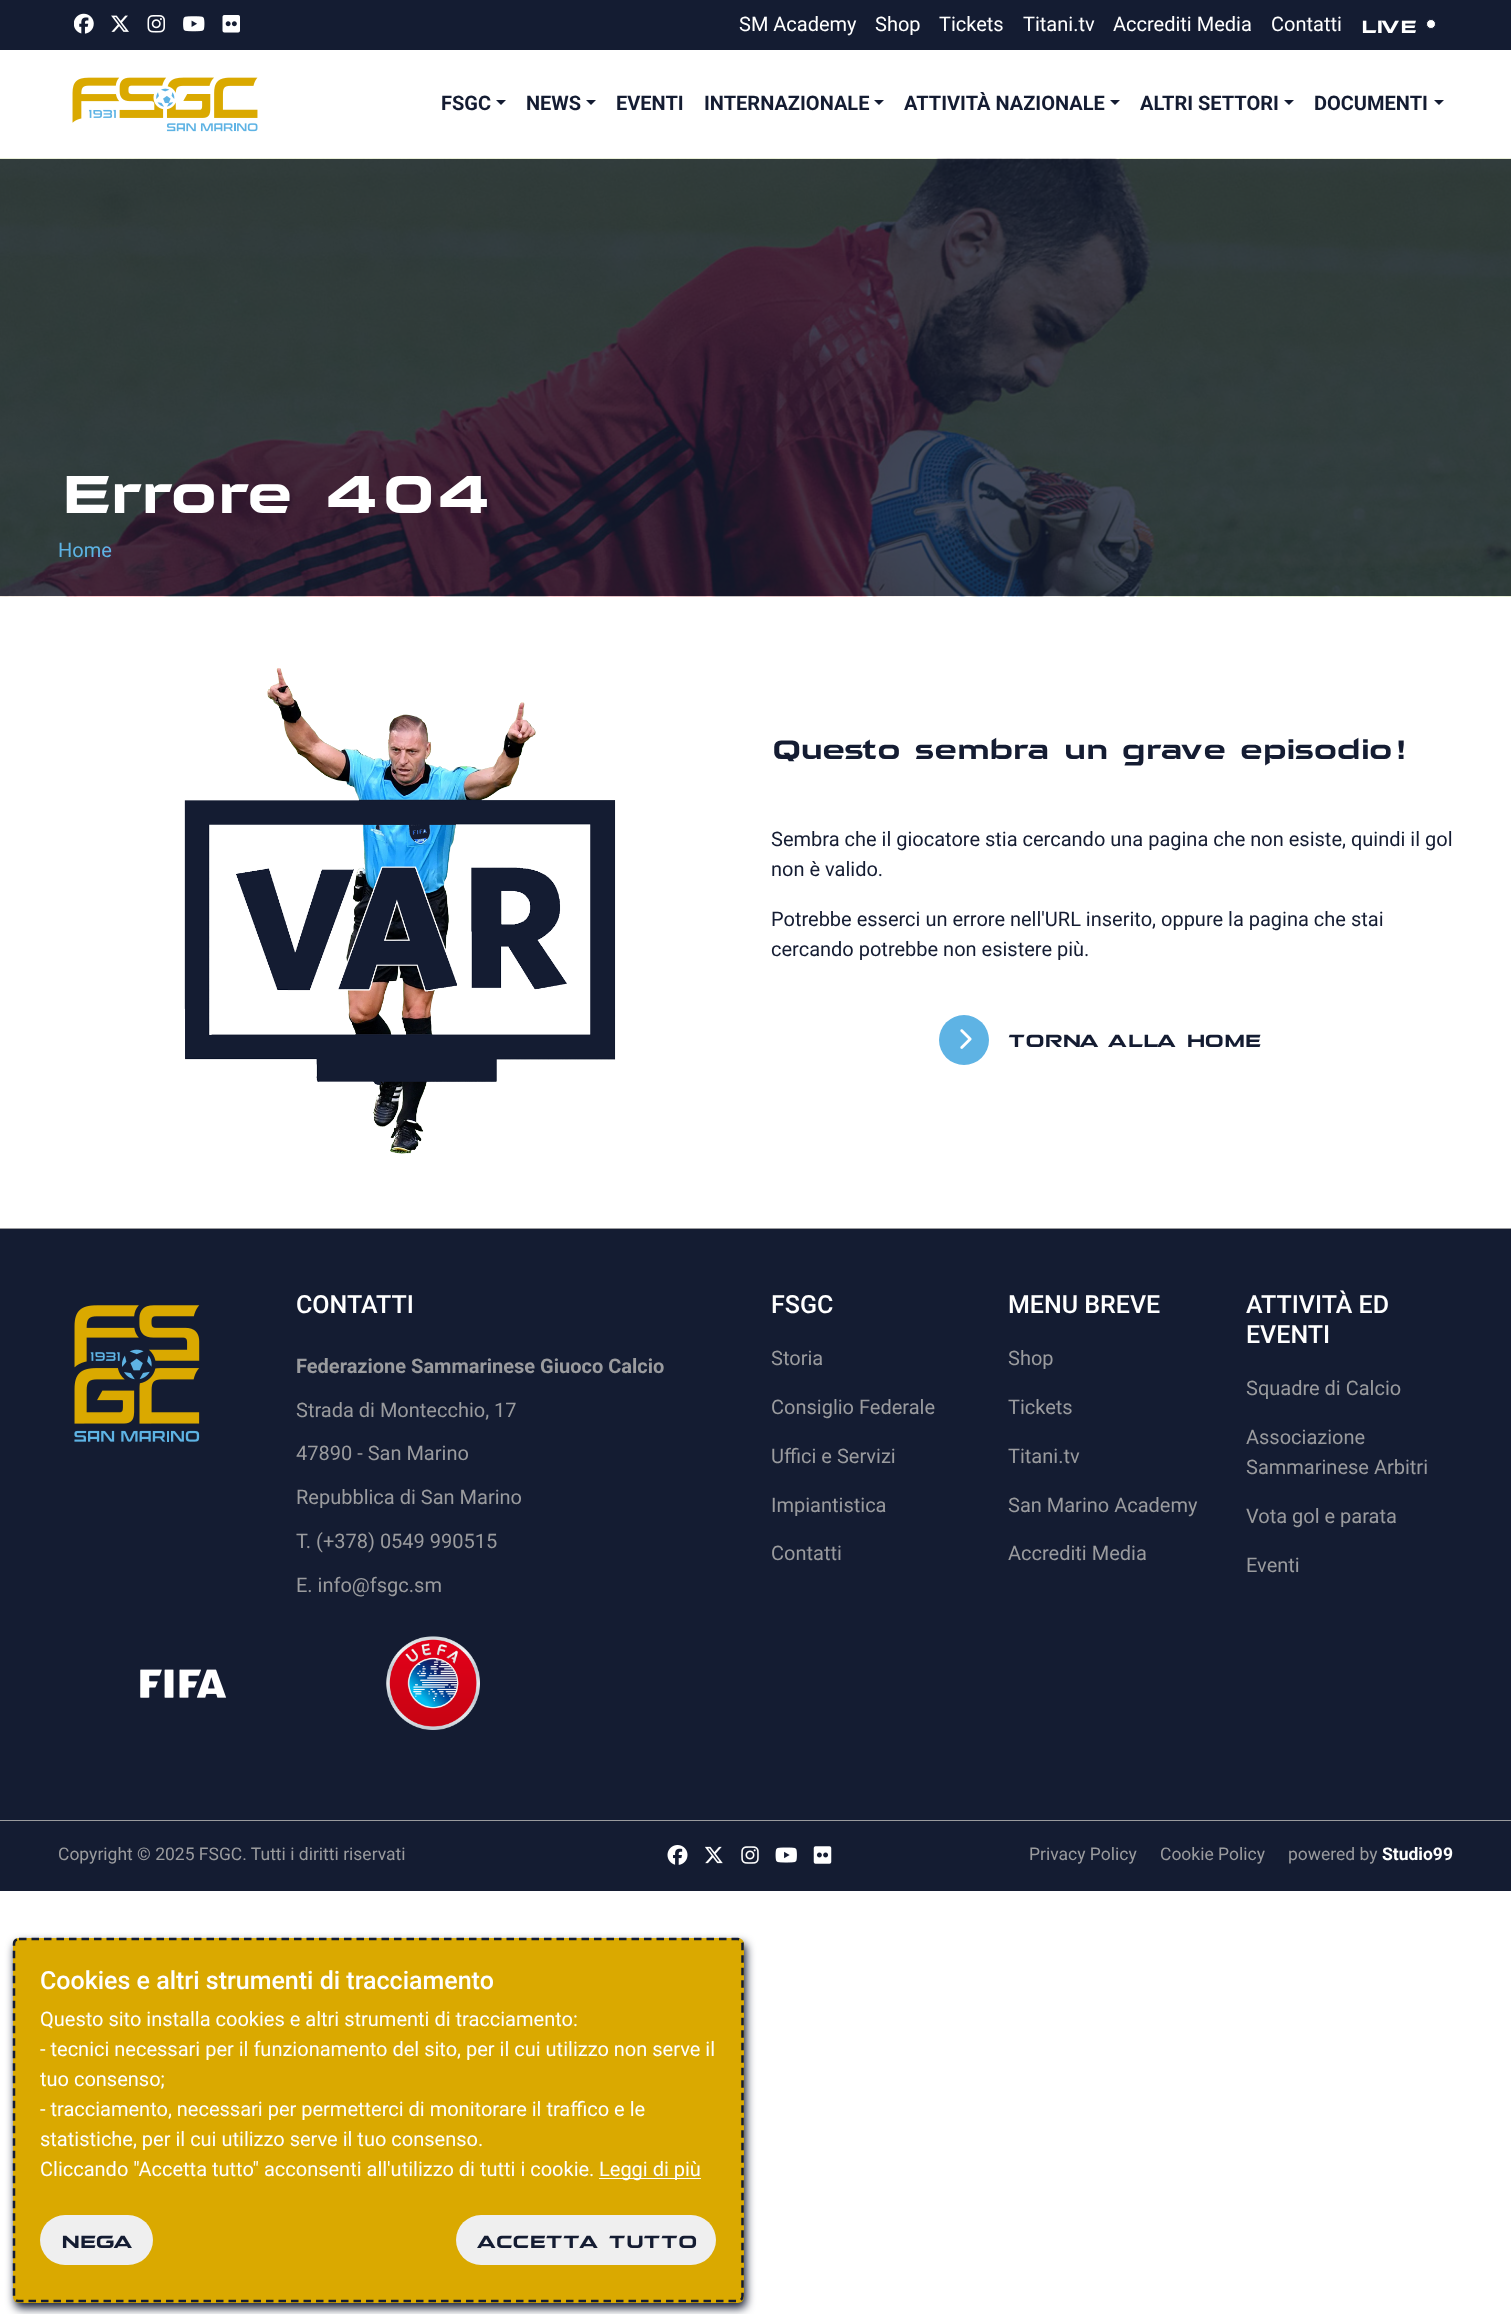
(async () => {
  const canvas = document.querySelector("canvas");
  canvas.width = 1511;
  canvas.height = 2314;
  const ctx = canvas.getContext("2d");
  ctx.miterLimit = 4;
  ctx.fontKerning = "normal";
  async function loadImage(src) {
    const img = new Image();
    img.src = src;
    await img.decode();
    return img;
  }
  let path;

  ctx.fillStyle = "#ffffff";
  ctx.fillRect(0, 0, 1511, 2314);
  ctx.fillStyle = "#141c32";
  ctx.fillRect(0, 0, 1511, 50);
  ctx.drawImage(await loadImage("img/1.png"), 74, 13, 20, 21);
  ctx.drawImage(await loadImage("img/2.png"), 111, 15, 18, 17);
  ctx.drawImage(await loadImage("img/3.png"), 147, 15, 18, 18);
  ctx.drawImage(await loadImage("img/4.png"), 183, 16, 22, 16);
  ctx.drawImage(await loadImage("img/5.png"), 222, 15, 18, 18);
  ctx.fillStyle = "#ffffff";
  ctx.beginPath();
  ctx.arc(1431, 24, 4.5, 0, Math.PI * 2);
  ctx.fill();
  ctx.strokeStyle = "#141c32";
  ctx.stroke();
  ctx.drawImage(await loadImage("img/6.png"), 72, 77, 186, 55);
  ctx.fillStyle = "#141c32";
  path = new Path2D("M496 100H506L501 105Z");
  ctx.fill(path);
  path = new Path2D("M586 100H596L591 105Z");
  ctx.fill(path);
  path = new Path2D("M874 100H884L879 105Z");
  ctx.fill(path);
  path = new Path2D("M1110 100H1120L1115 105Z");
  ctx.fill(path);
  path = new Path2D("M1284 100H1294L1289 105Z");
  ctx.fill(path);
  path = new Path2D("M1434 100H1444L1439 105Z");
  ctx.fill(path);
  ctx.drawImage(await loadImage("img/7.png"), 0, 158, 1511, 439);
  ctx.drawImage(await loadImage("img/8.png"), 184, 668, 432, 486);
  ctx.fillStyle = "#5eb3e4";
  ctx.beginPath();
  ctx.arc(964, 1040, 25, 0, Math.PI * 2);
  ctx.fill();
  ctx.drawImage(await loadImage("img/9.png"), 960, 1029, 12, 20);
  for (const [x, y, w, h, color] of [
    [0, 1229, 1511, 591, "#141c32"],
    [0, 1228, 1511, 1, "#9a9b9e"],
    [0, 1820, 1511, 1, "#9a9b9e"],
  ]) {
    ctx.fillStyle = color;
    ctx.fillRect(x, y, w, h);
  }
  ctx.drawImage(await loadImage("img/10.png"), 74, 1305, 126, 137);
  ctx.drawImage(await loadImage("img/11.png"), 140, 1669, 87, 29);
  ctx.drawImage(await loadImage("img/12.png"), 386, 1636, 94, 94);
  ctx.fillStyle = "#141c32";
  ctx.fillRect(0, 1821, 1511, 70);
  ctx.drawImage(await loadImage("img/13.png"), 667, 1845, 21, 20);
  ctx.drawImage(await loadImage("img/14.png"), 705, 1846, 18, 18);
  ctx.drawImage(await loadImage("img/15.png"), 741, 1846, 18, 18);
  ctx.drawImage(await loadImage("img/16.png"), 775, 1847, 22, 16);
  ctx.drawImage(await loadImage("img/17.png"), 813, 1846, 19, 18);
  ctx.filter = "blur(5px)";
  ctx.beginPath();
  ctx.roundRect(15, 1943, 731, 365, 6);
  ctx.fill();
  ctx.filter = "none";
  ctx.fillStyle = "#daa900";
  ctx.beginPath();
  ctx.roundRect(13, 1938, 731, 365, 6);
  ctx.fill();
  path = new Path2D("M19 1939H737.5C740.5 1939 742.5 1941 742.5 1944V2296C742.5 2299 740.5 2301 737.5 2301H19C16 2301 14 2299 14 2296V1944C14 1941 16 1939 19 1939Z");
  ctx.lineWidth = 2.5;
  ctx.setLineDash([7.5, 5]);
  ctx.stroke(path);
  ctx.fillStyle = "#ffffff";
  ctx.fillRect(599, 2178, 102, 1);
  ctx.fillStyle = "#efefef";
  ctx.beginPath();
  ctx.roundRect(40, 2215, 113, 50, 25);
  ctx.fill();
  ctx.beginPath();
  ctx.roundRect(456, 2215, 260, 50, 25);
  ctx.fill();
  ctx.font = "20px Roboto";
  ctx.fillStyle = "#ffffff";
  for (const [text, x, y] of [
    ["SM Academy", 739, 31],
    ["Shop", 875, 31],
    ["Tickets", 939, 31],
    ["Titani.tv", 1023, 31],
    ["Accrediti Media", 1113, 31],
    ["Contatti", 1271, 31],
  ]) {
    ctx.fillText(text, x, y);
  }
  ctx.font = "bold 20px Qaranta";
  ctx.fillText("LIVE", 1360, 33);
  ctx.font = "bold 20px Roboto";
  ctx.fillStyle = "#141c32";
  for (const [text, x, y] of [
    ["FSGC", 441, 110],
    ["NEWS", 526, 110],
    ["EVENTI", 616, 110],
    ["INTERNAZIONALE", 704, 110],
    ["ATTIVITÀ NAZIONALE", 904, 110],
    ["ALTRI SETTORI", 1140, 110],
    ["DOCUMENTI", 1314, 110],
  ]) {
    ctx.fillText(text, x, y);
  }
  ctx.font = "bold 60px Qaranta";
  ctx.fillStyle = "#ffffff";
  ctx.fillText("Errore 404", 58, 513);
  ctx.font = "20px Roboto";
  ctx.fillStyle = "#5eb3e4";
  ctx.fillText("Home", 58, 557);
  ctx.font = "bold 30px Qaranta";
  ctx.fillStyle = "#141c32";
  ctx.fillText("Questo sembra un grave episodio!", 771, 759);
  ctx.font = "20px Roboto";
  for (const [text, x, y] of [
    ["Sembra che il giocatore stia cercando una pagina che non esiste, quindi il gol", 771, 846],
    ["non è valido.", 771, 876],
    ["Potrebbe esserci un errore nell'URL inserito, oppure la pagina che stai", 771, 926],
    ["cercando potrebbe non esistere più.", 771, 956],
  ]) {
    ctx.fillText(text, x, y);
  }
  ctx.font = "bold 20px Qaranta";
  ctx.fillText("TORNA ALLA HOME", 1007, 1047);
  ctx.font = "500 25px Roboto";
  ctx.fillStyle = "#ffffff";
  ctx.fillText("CONTATTI", 296, 1313);
  ctx.font = "bold 20px Roboto";
  ctx.fillStyle = "#9a9b9e";
  ctx.fillText("Federazione Sammarinese Giuoco Calcio", 296, 1373);
  ctx.font = "20px Roboto";
  for (const [text, x, y] of [
    ["Strada di Montecchio, 17", 296, 1417],
    ["47890 - San Marino", 296, 1460],
    ["Repubblica di San Marino", 296, 1504],
    ["T. (+378) 0549 990515", 296, 1548],
    ["E. info@fsgc.sm", 296, 1592],
  ]) {
    ctx.fillText(text, x, y);
  }
  ctx.font = "500 25px Roboto";
  ctx.fillStyle = "#ffffff";
  ctx.fillText("FSGC", 771, 1313);
  ctx.font = "20px Roboto";
  ctx.fillStyle = "#9a9b9e";
  for (const [text, x, y] of [
    ["Storia", 771, 1365],
    ["Consiglio Federale", 771, 1414],
    ["Uffici e Servizi", 771, 1463],
    ["Impiantistica", 771, 1512],
    ["Contatti", 771, 1560],
  ]) {
    ctx.fillText(text, x, y);
  }
  ctx.font = "500 25px Roboto";
  ctx.fillStyle = "#ffffff";
  ctx.fillText("MENU BREVE", 1008, 1313);
  ctx.font = "20px Roboto";
  ctx.fillStyle = "#9a9b9e";
  for (const [text, x, y] of [
    ["Shop", 1008, 1365],
    ["Tickets", 1008, 1414],
    ["Titani.tv", 1008, 1463],
    ["San Marino Academy", 1008, 1512],
    ["Accrediti Media", 1008, 1560],
  ]) {
    ctx.fillText(text, x, y);
  }
  ctx.font = "500 25px Roboto";
  ctx.fillStyle = "#ffffff";
  ctx.fillText("ATTIVITÀ ED", 1246, 1313);
  ctx.fillText("EVENTI", 1246, 1343);
  ctx.font = "20px Roboto";
  ctx.fillStyle = "#9a9b9e";
  for (const [text, x, y] of [
    ["Squadre di Calcio", 1246, 1395],
    ["Associazione", 1246, 1444],
    ["Sammarinese Arbitri", 1246, 1474],
    ["Vota gol e parata", 1246, 1523],
    ["Eventi", 1246, 1572],
  ]) {
    ctx.fillText(text, x, y);
  }
  ctx.font = "17.5px Roboto";
  for (const [text, x, y] of [
    ["Copyright © 2025 FSGC. Tutti i diritti riservati", 58, 1860],
    ["Privacy Policy", 1029, 1860],
    ["Cookie Policy", 1160, 1860],
    ["powered by", 1288, 1860],
  ]) {
    ctx.fillText(text, x, y);
  }
  ctx.font = "bold 17.5px Roboto";
  ctx.fillStyle = "#ffffff";
  ctx.fillText("Studio99", 1382, 1860);
  ctx.font = "500 25px Roboto";
  ctx.fillText("Cookies e altri strumenti di tracciamento", 40, 1989);
  ctx.font = "20px Roboto";
  for (const [text, x, y] of [
    ["Questo sito installa cookies e altri strumenti di tracciamento:", 40, 2026],
    ["- tecnici necessari per il funzionamento del sito, per il cui utilizzo non serve il", 40, 2056],
    ["tuo consenso;", 40, 2086],
    ["- tracciamento, necessari per permetterci di monitorare il traffico e le", 40, 2116],
    ["statistiche, per il cui utilizzo serve il tuo consenso.", 40, 2146],
    ["Cliccando \"Accetta tutto\" acconsenti all'utilizzo di tutti i cookie.", 40, 2176],
    ["Leggi di più", 599, 2176],
  ]) {
    ctx.fillText(text, x, y);
  }
  ctx.font = "bold 20px Qaranta";
  ctx.fillStyle = "#141c32";
  ctx.fillText("NEGA", 60, 2248);
  ctx.fillText("ACCETTA TUTTO", 477, 2248);
})();
